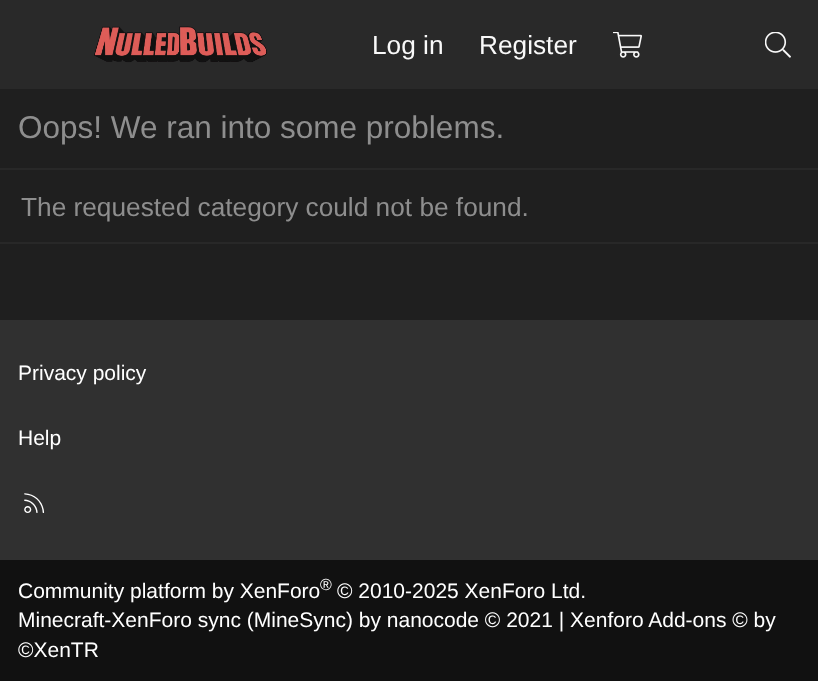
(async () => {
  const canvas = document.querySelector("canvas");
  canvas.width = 818;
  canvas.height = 681;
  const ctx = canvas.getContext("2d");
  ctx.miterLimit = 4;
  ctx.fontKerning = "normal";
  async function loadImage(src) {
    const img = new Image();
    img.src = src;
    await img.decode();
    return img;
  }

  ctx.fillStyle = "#111111";
  ctx.fillRect(0, 0, 818, 681);
  ctx.fillStyle = "#292929";
  ctx.fillRect(0, 0, 818, 89);
  ctx.drawImage(await loadImage("img/1.png"), 94, 26, 173, 37);
  ctx.drawImage(await loadImage("img/2.png"), 613, 32, 29, 26);
  ctx.drawImage(await loadImage("img/3.png"), 765, 32, 26, 26);
  for (const [x, y, w, h, color] of [
    [0, 89, 818, 231, "#1f1f1f"],
    [0, 168, 818, 2, "#282828"],
    [0, 242, 818, 2, "#282828"],
    [0, 320, 818, 240, "#303030"],
  ]) {
    ctx.fillStyle = color;
    ctx.fillRect(x, y, w, h);
  }
  ctx.drawImage(await loadImage("img/4.png"), 24, 493, 21, 20);
  ctx.font = "26.25px Liberation Sans";
  ctx.fillStyle = "#f9f9f9";
  ctx.fillText("Log in", 372, 54);
  ctx.fillText("Register", 479, 54);
  ctx.font = "31.5px Liberation Sans";
  ctx.fillStyle = "#8e8e8e";
  ctx.fillText("Oops! We ran into some problems.", 18, 138);
  ctx.font = "26.25px Liberation Sans";
  ctx.fillText("The requested category could not be found.", 21, 216);
  ctx.font = "21px Liberation Sans";
  ctx.fillStyle = "#ffffff";
  for (const [text, x, y] of [
    ["Privacy policy", 18, 380],
    ["Help", 18, 445],
    ["Community platform by XenForo", 18, 598],
  ]) {
    ctx.fillText(text, x, y);
  }
  ctx.font = "16px Liberation Sans";
  ctx.fillText("®", 320, 590);
  ctx.font = "21px Liberation Sans";
  for (const [text, x, y] of [
    ["© 2010-2025 XenForo Ltd.", 337, 598],
    ["Minecraft-XenForo sync (MineSync) by nanocode © 2021 | Xenforo Add-ons © by", 18, 627],
    ["©XenTR", 18, 657],
  ]) {
    ctx.fillText(text, x, y);
  }
})();
